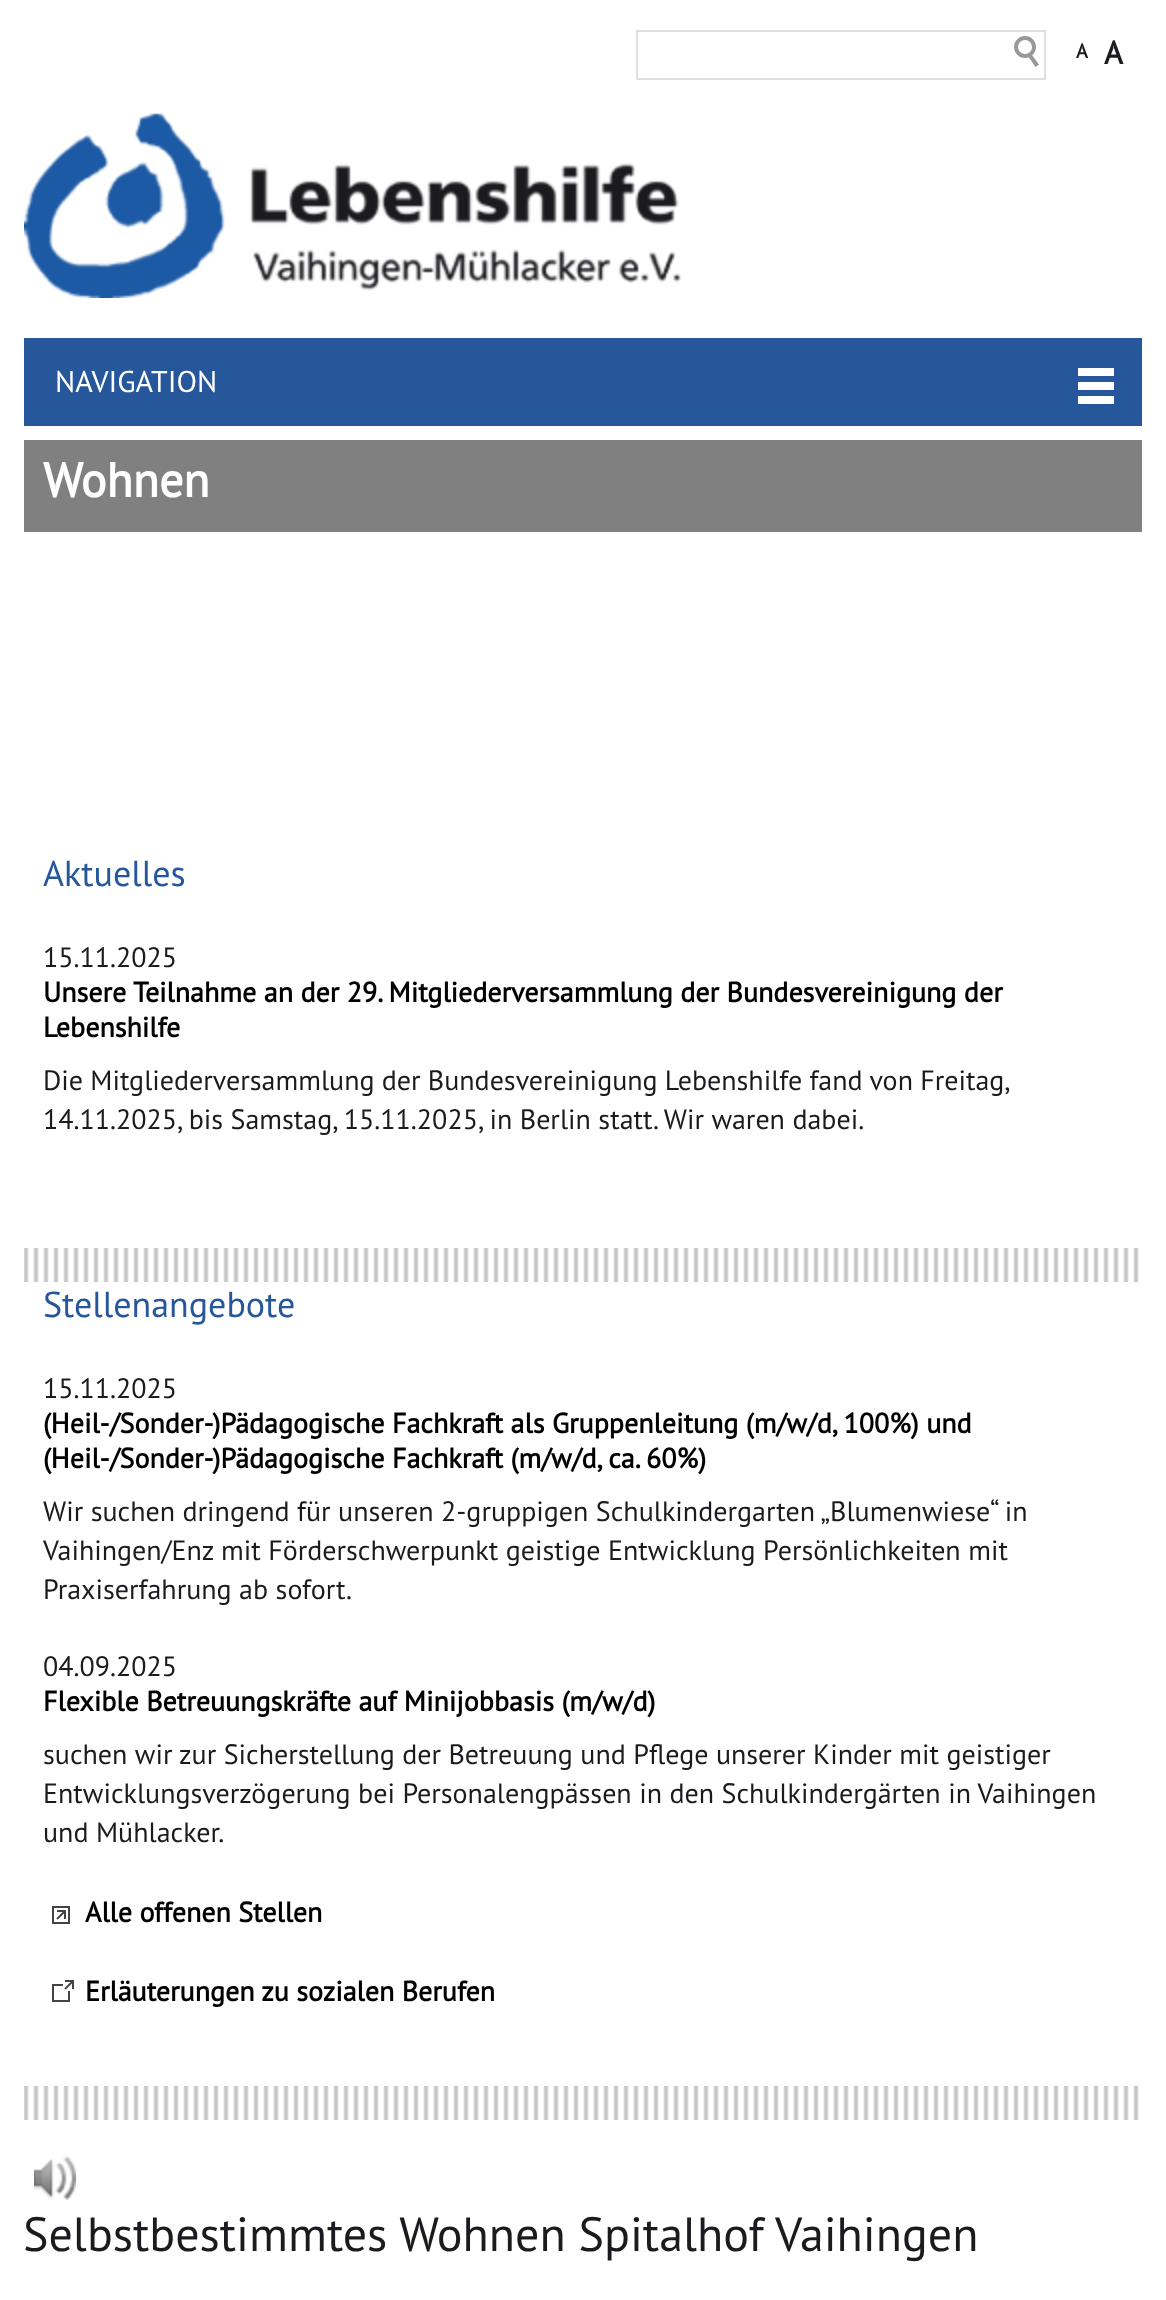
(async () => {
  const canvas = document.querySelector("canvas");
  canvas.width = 1166;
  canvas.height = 2300;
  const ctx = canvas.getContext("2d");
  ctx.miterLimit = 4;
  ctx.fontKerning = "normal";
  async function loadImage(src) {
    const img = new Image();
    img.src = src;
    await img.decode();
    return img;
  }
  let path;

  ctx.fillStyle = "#ffffff";
  ctx.fillRect(0, 0, 1166, 2300);
  for (const [x, y, w, h, color] of [
    [636, 30, 410, 2, "#e0e0e0"],
    [636, 78, 360, 2, "#e0e0e0"],
    [636, 30, 2, 50, "#e0e0e0"],
    [1044, 30, 2, 50, "#e0e0e0"],
    [996, 78, 50, 2, "#e0e0e0"],
  ]) {
    ctx.fillStyle = color;
    ctx.fillRect(x, y, w, h);
  }
  ctx.beginPath();
  ctx.arc(1025, 47, 9, 0, Math.PI * 2);
  ctx.strokeStyle = "#999999";
  ctx.lineWidth = 4;
  ctx.stroke();
  ctx.fillStyle = "#999999";
  path = new Path2D("M1030.5 53L1039 64.5L1035.5 67L1027.5 55.5Z");
  ctx.fill(path);
  ctx.drawImage(await loadImage("img/1.png"), 24, 113, 657, 185);
  for (const [x, y, w, h, color] of [
    [24, 338, 1118, 88, "#26579b"],
    [1078, 368, 36, 8, "#ffffff"],
    [1078, 382, 36, 8, "#ffffff"],
    [1078, 396, 36, 8, "#ffffff"],
    [24, 440, 1118, 92, "#808080"],
  ]) {
    ctx.fillStyle = color;
    ctx.fillRect(x, y, w, h);
  }
  ctx.drawImage(await loadImage("img/2.png"), 24, 1248, 1115, 34);
  ctx.drawImage(await loadImage("img/3.png"), 52, 1906, 18, 18);
  ctx.drawImage(await loadImage("img/4.png"), 52, 1980, 22, 22);
  ctx.drawImage(await loadImage("img/2.png"), 24, 2086, 1115, 34);
  ctx.drawImage(await loadImage("img/5.png"), 34, 2156, 42, 44);
  ctx.font = "bold 20px PT Sans";
  ctx.fillStyle = "#1b1b1f";
  ctx.fillText("A", 1076, 58);
  ctx.font = "bold 32px PT Sans";
  ctx.fillText("A", 1104, 64);
  ctx.font = "30px PT Sans";
  ctx.fillStyle = "#ffffff";
  ctx.fillText("NAVIGATION", 55, 392);
  ctx.font = "bold 48px PT Sans";
  ctx.fillText("Wohnen", 43, 497);
  ctx.font = "36px PT Sans";
  ctx.fillStyle = "#26579b";
  ctx.fillText("Aktuelles", 43, 886);
  ctx.font = "28px PT Sans";
  ctx.fillStyle = "#1b1b1f";
  ctx.fillText("15.11.2025", 43, 967);
  ctx.font = "bold 28px PT Sans";
  ctx.fillStyle = "#000000";
  ctx.fillText("Unsere Teilnahme an der 29. Mitgliederversammlung der Bundesvereinigung der", 43, 1002);
  ctx.fillText("Lebenshilfe", 43, 1037);
  ctx.wordSpacing = "-0.25px";
  ctx.font = "28px PT Sans";
  ctx.fillStyle = "#1b1b1f";
  ctx.fillText("Die Mitgliederversammlung der Bundesvereinigung Lebenshilfe fand von Freitag,", 43, 1090);
  ctx.wordSpacing = "0px";
  ctx.fillText("14.11.2025, bis Samstag, 15.11.2025, in Berlin statt. Wir waren dabei.", 43, 1129);
  ctx.font = "36px PT Sans";
  ctx.fillStyle = "#26579b";
  ctx.fillText("Stellenangebote", 43, 1317);
  ctx.font = "28px PT Sans";
  ctx.fillStyle = "#1b1b1f";
  ctx.fillText("15.11.2025", 43, 1398);
  ctx.font = "bold 28px PT Sans";
  ctx.fillStyle = "#000000";
  ctx.fillText("(Heil-/Sonder-)Pädagogische Fachkraft als Gruppenleitung (m/w/d, 100%) und", 43, 1433);
  ctx.fillText("(Heil-/Sonder-)Pädagogische Fachkraft (m/w/d, ca. 60%)", 43, 1468);
  ctx.font = "28px PT Sans";
  ctx.fillStyle = "#1b1b1f";
  for (const [text, x, y] of [
    ["Wir suchen dringend für unseren 2-gruppigen Schulkindergarten „Blumenwiese“ in", 43, 1521],
    ["Vaihingen/Enz mit Förderschwerpunkt geistige Entwicklung Persönlichkeiten mit", 43, 1560],
    ["Praxiserfahrung ab sofort.", 43, 1599],
    ["04.09.2025", 43, 1676],
  ]) {
    ctx.fillText(text, x, y);
  }
  ctx.font = "bold 28px PT Sans";
  ctx.fillStyle = "#000000";
  ctx.fillText("Flexible Betreuungskräfte auf Minijobbasis (m/w/d)", 43, 1711);
  ctx.font = "28px PT Sans";
  ctx.fillStyle = "#1b1b1f";
  for (const [text, x, y] of [
    ["suchen wir zur Sicherstellung der Betreuung und Pflege unserer Kinder mit geistiger", 43, 1764],
    ["Entwicklungsverzögerung bei Personalengpässen in den Schulkindergärten in Vaihingen", 43, 1803],
    ["und Mühlacker.", 43, 1842],
  ]) {
    ctx.fillText(text, x, y);
  }
  ctx.font = "bold 28px PT Sans";
  ctx.fillStyle = "#000000";
  ctx.fillText("Alle offenen Stellen", 85, 1922);
  ctx.fillText("Erläuterungen zu sozialen Berufen", 85, 2001);
  ctx.font = "48px PT Sans";
  ctx.fillStyle = "#1b1b1f";
  ctx.fillText("Selbstbestimmtes Wohnen Spitalhof Vaihingen", 23, 2251);
})();
